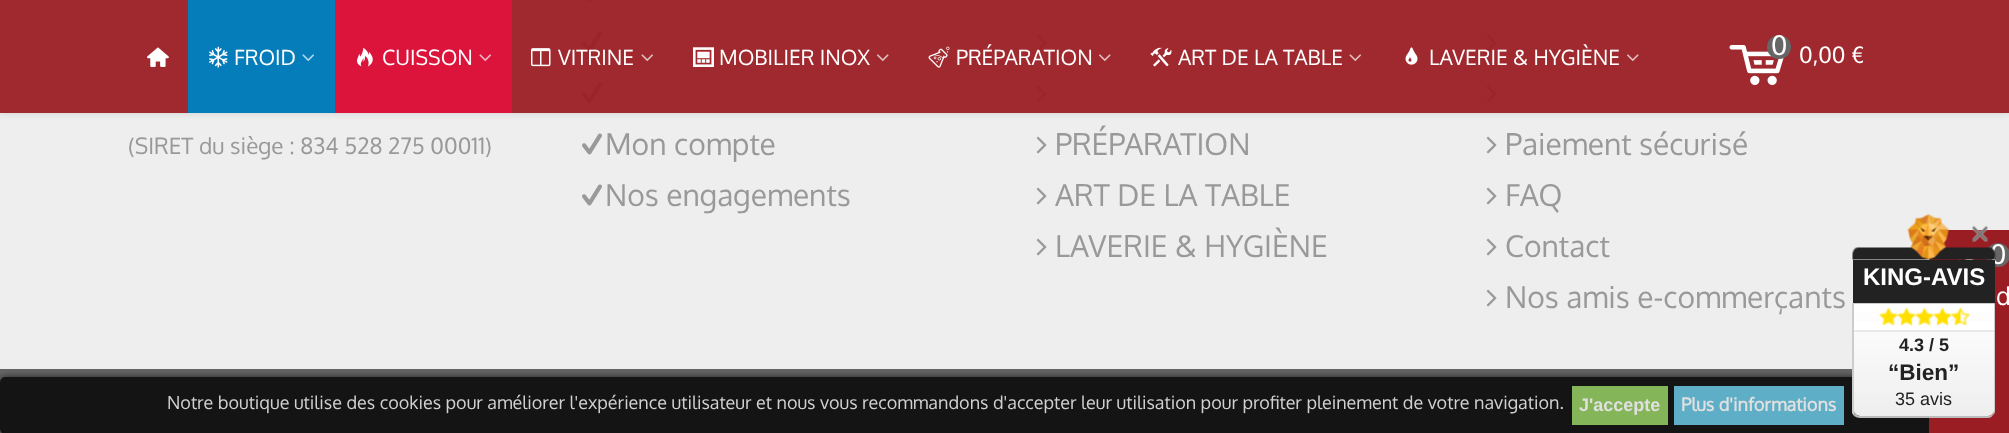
(async () => {
  const canvas = document.querySelector("canvas");
  canvas.width = 2009;
  canvas.height = 433;
  const ctx = canvas.getContext("2d");
  ctx.miterLimit = 4;
  ctx.fontKerning = "normal";
  async function loadImage(src) {
    const img = new Image();
    img.src = src;
    await img.decode();
    return img;
  }
  let gradient, path;

  ctx.fillStyle = "#eeeeee";
  ctx.fillRect(0, 0, 2009, 433);
  ctx.drawImage(await loadImage("img/14.png"), 587, 0, 5, 2);
  ctx.drawImage(await loadImage("img/15.png"), 582, 31, 20, 22);
  ctx.drawImage(await loadImage("img/15.png"), 582, 82, 20, 22);
  ctx.drawImage(await loadImage("img/16.png"), 1037, 0, 2, 1);
  ctx.drawImage(await loadImage("img/17.png"), 1036, 34, 11, 18);
  ctx.drawImage(await loadImage("img/17.png"), 1036, 85, 11, 18);
  ctx.drawImage(await loadImage("img/16.png"), 1487, 0, 2, 1);
  ctx.drawImage(await loadImage("img/17.png"), 1486, 34, 11, 18);
  ctx.drawImage(await loadImage("img/17.png"), 1486, 85, 11, 18);
  ctx.save();
  path = new Path2D("M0 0H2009V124H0ZM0 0H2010V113H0Z");
  ctx.clip(path, "evenodd");
  ctx.fillStyle = "rgba(0, 0, 0, 0.1)";
  ctx.filter = "blur(3px)";
  ctx.beginPath();
  ctx.rect(0, 2, 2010, 112);
  ctx.fill();
  ctx.filter = "none";
  ctx.restore();
  ctx.fillStyle = "rgba(154, 29, 35, 0.95)";
  ctx.fillRect(0, 0, 2009, 113);
  ctx.drawImage(await loadImage("img/1.png"), 147, 47, 22, 20);
  ctx.fillStyle = "#057dba";
  ctx.fillRect(188, 0, 147, 113);
  ctx.drawImage(await loadImage("img/2.png"), 209, 46, 19, 22);
  ctx.drawImage(await loadImage("img/3.png"), 302, 54, 12, 8);
  ctx.fillStyle = "#dc143c";
  ctx.fillRect(335, 0, 177, 113);
  ctx.drawImage(await loadImage("img/4.png"), 357, 47, 16, 20);
  ctx.drawImage(await loadImage("img/5.png"), 479, 54, 12, 8);
  ctx.drawImage(await loadImage("img/6.png"), 531, 48, 20, 19);
  ctx.drawImage(await loadImage("img/7.png"), 641, 54, 12, 8);
  ctx.drawImage(await loadImage("img/8.png"), 693, 47, 21, 20);
  ctx.drawImage(await loadImage("img/9.png"), 877, 54, 12, 8);
  ctx.drawImage(await loadImage("img/10.png"), 928, 46, 22, 22);
  ctx.drawImage(await loadImage("img/9.png"), 1099, 54, 12, 8);
  ctx.drawImage(await loadImage("img/11.png"), 1150, 47, 22, 20);
  ctx.drawImage(await loadImage("img/7.png"), 1349, 54, 12, 8);
  ctx.drawImage(await loadImage("img/12.png"), 1405, 47, 13, 18);
  ctx.drawImage(await loadImage("img/9.png"), 1627, 54, 12, 8);
  ctx.drawImage(await loadImage("img/13.png"), 1729, 45, 55, 40);
  ctx.fillStyle = "#666666";
  ctx.beginPath();
  ctx.arc(1779, 47, 12, 0, Math.PI * 2);
  ctx.fill();
  ctx.fillRect(0, 369, 1929, 64);
  ctx.save();
  path = new Path2D("M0 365H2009V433H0ZM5 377H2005C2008 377 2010 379 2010 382V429C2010 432 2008 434 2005 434H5C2 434 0 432 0 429V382C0 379 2 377 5 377Z");
  ctx.clip(path, "evenodd");
  ctx.fillStyle = "#141414";
  ctx.filter = "blur(4px)";
  ctx.beginPath();
  ctx.roundRect(0, 378, 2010, 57, 5);
  ctx.fill();
  ctx.filter = "none";
  ctx.restore();
  ctx.fillStyle = "rgba(0, 0, 0, 0.8)";
  ctx.beginPath();
  ctx.roundRect(1, 378, 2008, 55, 4);
  ctx.fill();
  ctx.strokeStyle = "#141414";
  ctx.lineWidth = 2;
  ctx.stroke();
  ctx.fillStyle = "#84b558";
  ctx.fillRect(1572, 386, 96, 39);
  ctx.fillStyle = "#5daec6";
  ctx.fillRect(1674, 386, 170, 39);
  ctx.drawImage(await loadImage("img/15.png"), 582, 133, 20, 22);
  ctx.drawImage(await loadImage("img/15.png"), 582, 184, 20, 22);
  ctx.drawImage(await loadImage("img/17.png"), 1036, 136, 11, 18);
  ctx.drawImage(await loadImage("img/17.png"), 1036, 187, 11, 18);
  ctx.drawImage(await loadImage("img/17.png"), 1036, 238, 11, 18);
  ctx.drawImage(await loadImage("img/17.png"), 1486, 136, 11, 18);
  ctx.drawImage(await loadImage("img/17.png"), 1486, 187, 11, 18);
  ctx.drawImage(await loadImage("img/17.png"), 1486, 238, 11, 18);
  ctx.drawImage(await loadImage("img/17.png"), 1486, 289, 11, 18);
  ctx.fillStyle = "#9a1d23";
  ctx.fillRect(1929, 230, 80, 203);
  ctx.drawImage(await loadImage("img/18.png"), 1959, 259, 15, 1);
  ctx.fillStyle = "#666666";
  ctx.beginPath();
  ctx.arc(1998, 255, 12, 0, Math.PI * 2);
  ctx.fill();
  gradient = ctx.createLinearGradient(1924, 305, 1924, 416);
  gradient.addColorStop(0, "#ffffff");
  gradient.addColorStop(1, "#eeeeee");
  ctx.fillStyle = gradient;
  path = new Path2D("M1854 304H1994V411C1994 413 1991 416 1988 416H1860C1857 416 1854 413 1854 411Z");
  ctx.fill(path);
  ctx.fillStyle = "#cccccc";
  path = new Path2D("M1854 304H1994L1995 303H1852Z");
  ctx.fill(path);
  path = new Path2D("M1995 303L1994 304V411L1993 414V415C1994 414 1995 413 1995 411Z");
  ctx.fill(path);
  ctx.fillStyle = "#bbbbbb";
  path = new Path2D("M1993 415C1992 417 1990 418 1988 418H1860C1858 418 1856 417 1854 416L1855 413C1856 415 1858 416 1860 416H1988C1990 416 1991 415 1993 414Z");
  ctx.fill(path);
  ctx.fillStyle = "#cccccc";
  path = new Path2D("M1854 416L1852 413V303L1854 304V411L1855 413Z");
  ctx.fill(path);
  ctx.fillStyle = "#ffffff";
  ctx.fillRect(1854, 321, 140, 9);
  ctx.fillStyle = "#e9e9e9";
  ctx.fillRect(1854, 330, 140, 2);
  ctx.drawImage(await loadImage("img/21.png"), 1879, 307, 19, 19);
  ctx.drawImage(await loadImage("img/22.png"), 1897, 307, 19, 19);
  ctx.drawImage(await loadImage("img/23.png"), 1915, 307, 19, 19);
  ctx.drawImage(await loadImage("img/22.png"), 1933, 307, 19, 19);
  ctx.drawImage(await loadImage("img/24.png"), 1951, 307, 19, 19);
  ctx.font = "21px Oxygen";
  ctx.fillStyle = "#ffffff";
  for (const [text, x, y] of [
    ["FROID", 234, 65],
    ["CUISSON", 382, 65],
    ["VITRINE", 558, 65],
    ["MOBILIER INOX", 719, 65],
    ["PRÉPARATION", 956, 65],
    ["ART DE LA TABLE", 1178, 65],
    ["LAVERIE & HYGIÈNE", 1429, 65],
  ]) {
    ctx.fillText(text, x, y);
  }
  ctx.font = "27px Oxygen";
  ctx.fillText("0", 1771, 55);
  ctx.font = "22.5px Oxygen";
  ctx.fillText("0,00 €", 1799, 63);
  ctx.font = "18px Oxygen";
  ctx.fillStyle = "#d1d1d1";
  ctx.fillText("Notre boutique utilise des cookies pour améliorer l'expérience utilisateur et nous vous recommandons d'accepter leur utilisation pour profiter pleinement de votre navigation.", 167, 409);
  ctx.font = "bold 18px Liberation Sans";
  ctx.fillStyle = "#e0e0e0";
  ctx.fillText("J'accepte", 1579, 411);
  ctx.font = "bold 18px Oxygen";
  ctx.fillText("Plus d'informations", 1681, 411);
  ctx.font = "22.5px Oxygen";
  ctx.fillStyle = "#999999";
  ctx.fillText("(SIRET du siège : 834 528 275 00011)", 128, 154);
  ctx.font = "30px Oxygen";
  for (const [text, x, y] of [
    ["Mon compte", 605, 155],
    ["Nos engagements", 605, 206],
    ["PRÉPARATION", 1055, 155],
    ["ART DE LA TABLE", 1055, 206],
    ["LAVERIE & HYGIÈNE", 1055, 257],
    ["Paiement sécurisé", 1505, 155],
    ["FAQ", 1505, 206],
    ["Contact", 1505, 257],
    ["Nos amis e-commerçants", 1505, 308],
  ]) {
    ctx.fillText(text, x, y);
  }
  ctx.font = "27px Oxygen";
  ctx.fillStyle = "#ffffff";
  ctx.fillText("0", 1990, 264);
  ctx.font = "25px Oxygen";
  ctx.fillText("d", 1996, 305);
  ctx.drawImage(await loadImage("img/19.png"), 1852, 214, 144, 46);
  ctx.fillStyle = "#222222";
  ctx.fillRect(1853, 260, 142, 43);
  ctx.font = "bold 24px Liberation Sans";
  ctx.fillStyle = "#ffffff";
  ctx.fillText("KING-AVIS", 1863, 285);
  ctx.drawImage(await loadImage("img/20.png"), 1972, 226, 16, 16);
  ctx.font = "bold 18px Liberation Sans";
  ctx.fillStyle = "#222222";
  ctx.fillText("4.3 / 5", 1899, 351);
  ctx.font = "bold 22.5px Liberation Sans";
  ctx.fillText("“Bien”", 1888, 380);
  ctx.font = "18px Liberation Sans";
  ctx.fillText("35 avis", 1895, 405);
})();
